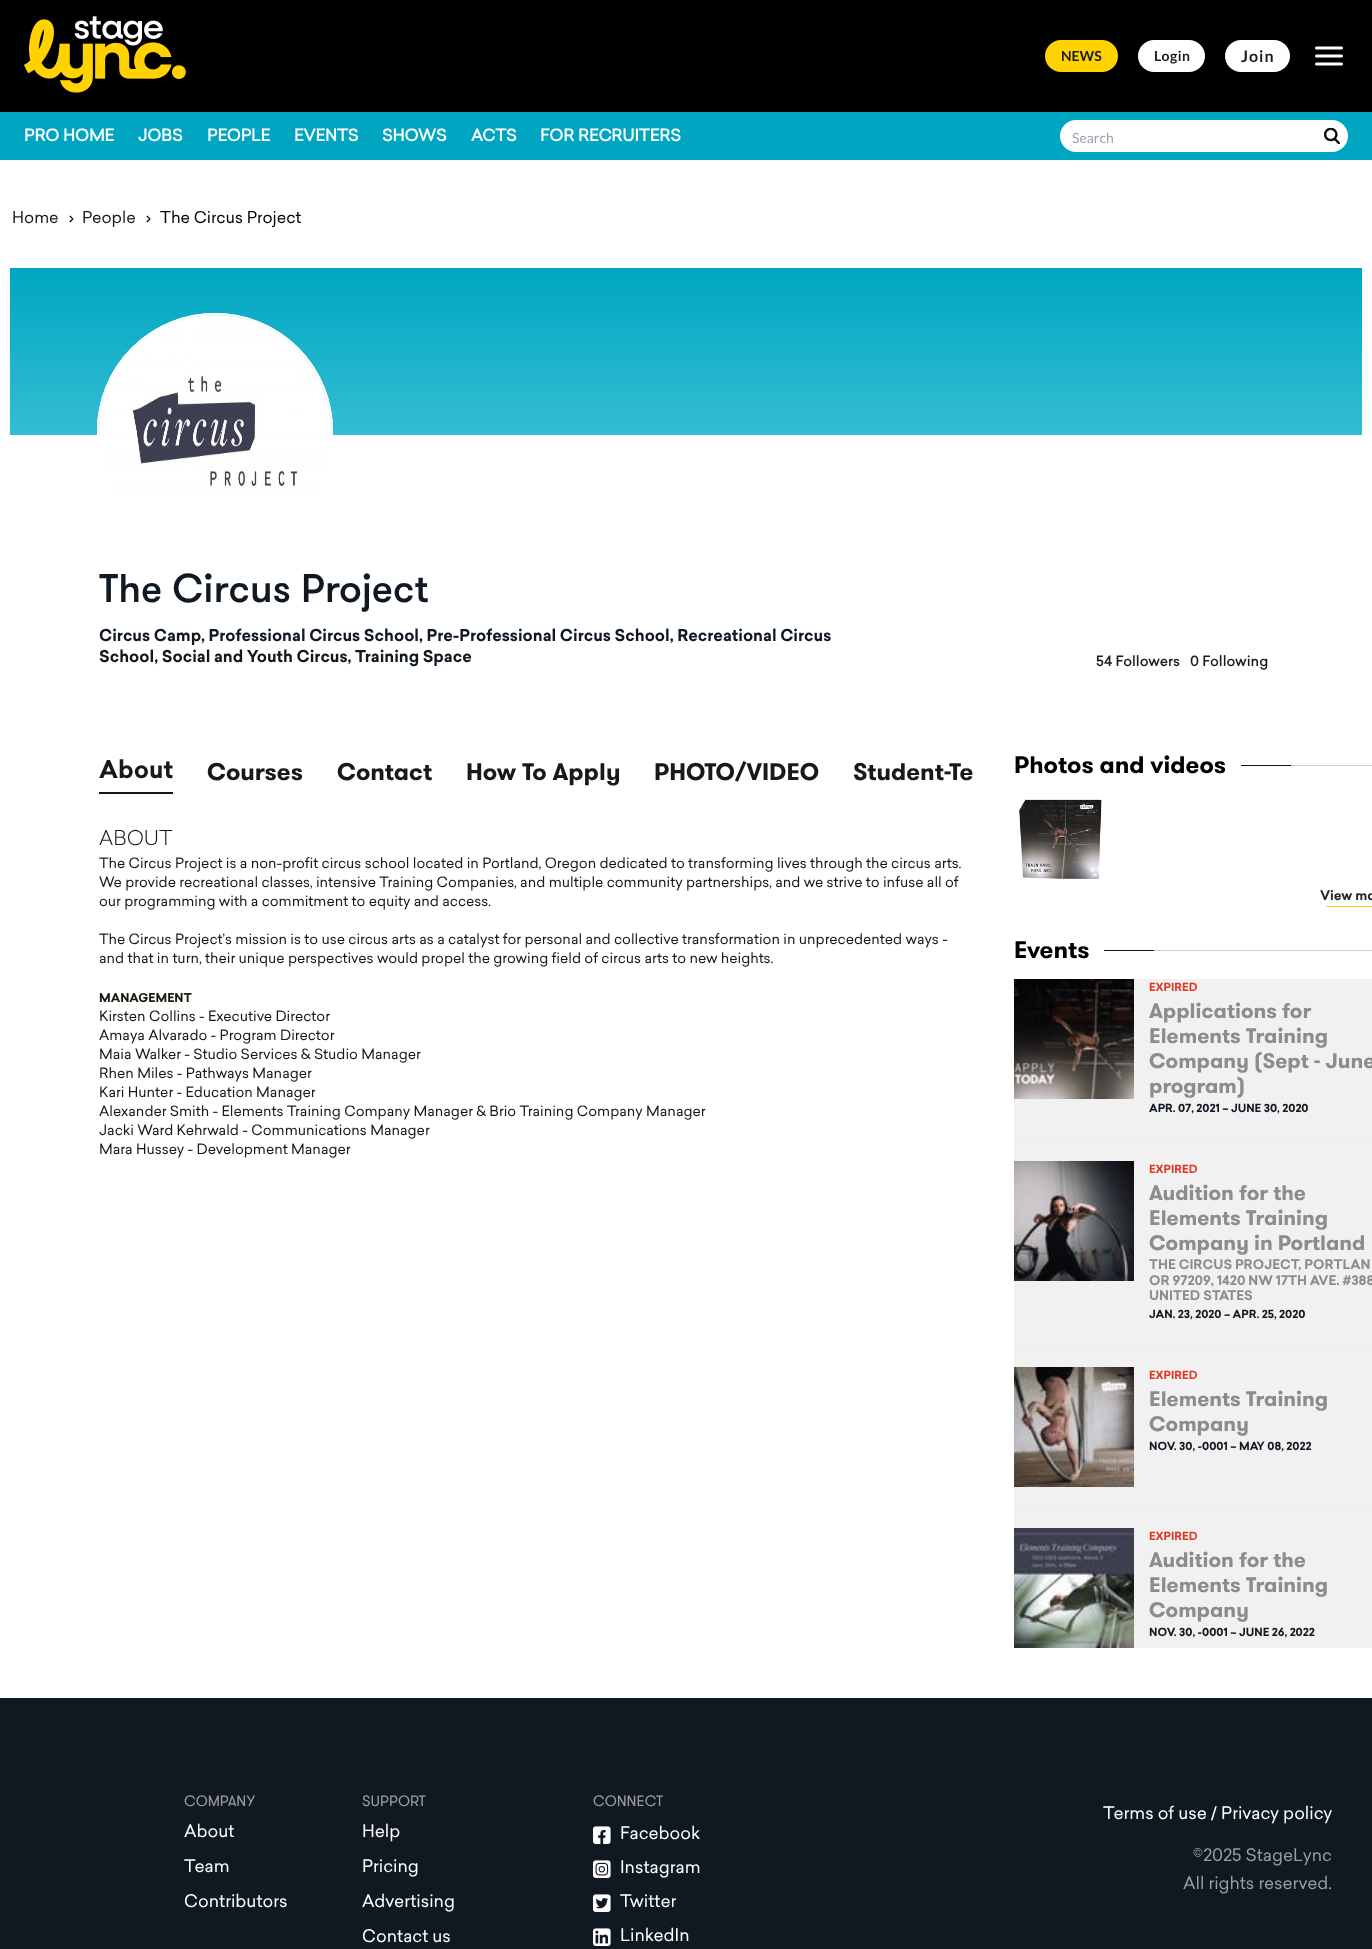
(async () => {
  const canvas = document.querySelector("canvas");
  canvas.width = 1372;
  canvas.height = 1949;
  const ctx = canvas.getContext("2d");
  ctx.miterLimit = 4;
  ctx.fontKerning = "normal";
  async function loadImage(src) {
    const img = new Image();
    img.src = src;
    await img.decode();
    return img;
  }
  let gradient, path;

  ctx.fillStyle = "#ffffff";
  ctx.fillRect(0, 0, 1372, 1949);
  ctx.fillStyle = "#000000";
  ctx.fillRect(0, 0, 1372, 112);
  ctx.drawImage(await loadImage("img/1.png"), 24, 16, 162, 77);
  ctx.fillStyle = "#ffd200";
  ctx.beginPath();
  ctx.roundRect(1045, 40, 73, 32, 16);
  ctx.fill();
  ctx.fillStyle = "#ffffff";
  ctx.beginPath();
  ctx.roundRect(1138, 40, 67, 32, 16);
  ctx.fill();
  ctx.beginPath();
  ctx.roundRect(1225, 40, 65, 32, 16);
  ctx.fill();
  path = new Path2D("M1316.5 48H1341.5M1316.5 56H1341.5M1316.5 64H1341.5");
  ctx.strokeStyle = "#ffffff";
  ctx.lineWidth = 3;
  ctx.lineCap = "round";
  ctx.lineJoin = "round";
  ctx.stroke(path);
  ctx.fillStyle = "#00a6c1";
  ctx.fillRect(0, 112, 1372, 48);
  ctx.fillStyle = "#ffffff";
  ctx.beginPath();
  ctx.roundRect(1061, 121, 286, 30, 15);
  ctx.fill();
  ctx.lineWidth = 2;
  ctx.lineJoin = "miter";
  ctx.stroke();
  ctx.drawImage(await loadImage("img/2.png"), 1324, 128, 16, 16);
  gradient = ctx.createLinearGradient(686, 268, 686, 435);
  gradient.addColorStop(0, "#00a6c1");
  gradient.addColorStop(1, "#33bed4");
  ctx.fillStyle = gradient;
  ctx.fillRect(10, 268, 1352, 167);
  ctx.drawImage(await loadImage("img/3.png"), 99, 315, 232, 179);
  ctx.beginPath();
  ctx.arc(215, 431, 117, 0, Math.PI * 2);
  ctx.stroke();
  ctx.beginPath();
  ctx.arc(215, 431, 117, 0, Math.PI * 2);
  ctx.stroke();
  for (const [x, y, w, h, color] of [
    [99, 792, 74, 2, "#101921"],
    [1241, 765, 50, 1, "#101921"],
    [1291, 765, 81, 1, "#cccccc"],
  ]) {
    ctx.fillStyle = color;
    ctx.fillRect(x, y, w, h);
  }
  ctx.drawImage(await loadImage("img/4.png"), 1018, 799, 84, 80);
  for (const [x, y, w, h, color] of [
    [1326, 906, 46, 1, "#ffcd00"],
    [1104, 950, 50, 1, "#101921"],
    [1154, 950, 218, 1, "#cccccc"],
    [1014, 979, 358, 161, "#f1f1f1"],
  ]) {
    ctx.fillStyle = color;
    ctx.fillRect(x, y, w, h);
  }
  ctx.drawImage(await loadImage("img/5.png"), 1014, 979, 120, 120);
  ctx.fillRect(1014, 1141, 358, 205);
  ctx.fillStyle = "#ededed";
  ctx.fillRect(1014, 1140, 358, 1);
  ctx.drawImage(await loadImage("img/6.png"), 1014, 1161, 120, 120);
  ctx.fillStyle = "#f1f1f1";
  ctx.fillRect(1014, 1347, 358, 160);
  ctx.fillStyle = "#ededed";
  ctx.fillRect(1014, 1346, 358, 1);
  ctx.drawImage(await loadImage("img/7.png"), 1014, 1367, 120, 120);
  ctx.fillStyle = "#f1f1f1";
  ctx.fillRect(1014, 1508, 358, 140);
  ctx.fillStyle = "#ededed";
  ctx.fillRect(1014, 1507, 358, 1);
  ctx.drawImage(await loadImage("img/8.png"), 1014, 1528, 120, 120);
  ctx.fillStyle = "#101921";
  ctx.fillRect(0, 1698, 1372, 251);
  ctx.drawImage(await loadImage("img/9.png"), 593, 1826, 18, 18);
  ctx.drawImage(await loadImage("img/10.png"), 593, 1860, 18, 18);
  ctx.drawImage(await loadImage("img/11.png"), 593, 1894, 18, 18);
  ctx.drawImage(await loadImage("img/12.png"), 593, 1928, 18, 18);
  ctx.font = "bold 14px Lato";
  ctx.fillStyle = "#1c1b1f";
  ctx.fillText("NEWS", 1061, 61);
  ctx.letterSpacing = "0.5px";
  ctx.fillText("Login", 1154, 61);
  ctx.letterSpacing = "1px";
  ctx.font = "bold 16px Lato";
  ctx.fillText("Join", 1241, 62);
  ctx.letterSpacing = "0px";
  ctx.font = "bold 16px 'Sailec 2'";
  ctx.fillStyle = "#ffffff";
  for (const [text, x, y] of [
    ["PRO HOME", 24, 141],
    ["JOBS", 138, 141],
    ["PEOPLE", 207, 141],
    ["EVENTS", 294, 141],
    ["SHOWS", 382, 141],
    ["ACTS", 471, 141],
    ["FOR RECRUITERS", 540, 141],
  ]) {
    ctx.fillText(text, x, y);
  }
  ctx.font = "14px Lato";
  ctx.fillStyle = "#9ca3af";
  ctx.fillText("Search", 1072, 143);
  ctx.font = "16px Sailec";
  ctx.fillStyle = "#1c1b1f";
  ctx.fillText("Home", 12, 223);
  ctx.fillStyle = "#000000";
  ctx.fillText("›", 69, 223);
  ctx.fillStyle = "#1c1b1f";
  ctx.fillText("People", 82, 223);
  ctx.fillStyle = "#000000";
  ctx.fillText("›", 146, 223);
  ctx.fillText("The Circus Project", 160, 223);
  ctx.font = "500 40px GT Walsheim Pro";
  ctx.fillStyle = "#101921";
  ctx.fillText("The Circus Project", 99, 602);
  ctx.font = "bold 16px Sailec";
  ctx.fillText("Circus Camp, Professional Circus School, Pre-Professional Circus School, Recreational Circus", 99, 641);
  ctx.fillText("School, Social and Youth Circus, Training Space", 99, 662);
  ctx.font = "500 14px Sailec";
  ctx.fillStyle = "#1c1b1f";
  ctx.fillText("54 Followers", 1096, 666);
  ctx.fillText("0 Following", 1190, 666);
  ctx.font = "bold 24px Sailec";
  ctx.fillStyle = "#191919";
  ctx.fillText("About", 99, 778);
  ctx.font = "bold 24px GT Walsheim Pro";
  for (const [text, x, y] of [
    ["Courses", 207, 780],
    ["Contact", 337, 780],
    ["How To Apply", 466, 780],
    ["PHOTO/VIDEO", 654, 780],
    ["Student-Te", 853, 780],
  ]) {
    ctx.fillText(text, x, y);
  }
  ctx.font = "300 20px Sailec";
  ctx.fillStyle = "#131c0e";
  ctx.fillText("ABOUT", 99, 845);
  ctx.font = "14px Sailec";
  for (const [text, x, y] of [
    ["The Circus Project is a non-profit circus school located in Portland, Oregon dedicated to transforming lives through the circus arts.", 99, 868],
    ["We provide recreational classes, intensive Training Companies, and multiple community partnerships, and we strive to infuse all of", 99, 887],
    ["our programming with a commitment to equity and access.", 99, 906],
    ["The Circus Project’s mission is to use circus arts as a catalyst for personal and collective transformation in unprecedented ways -", 99, 944],
    ["and that in turn, their unique perspectives would propel the growing field of circus arts to new heights.", 99, 963],
  ]) {
    ctx.fillText(text, x, y);
  }
  ctx.font = "bold 12px Sailec";
  ctx.fillText("MANAGEMENT", 99, 1002);
  ctx.font = "14px Sailec";
  for (const [text, x, y] of [
    ["Kirsten Collins - Executive Director", 99, 1021],
    ["Amaya Alvarado - Program Director", 99, 1040],
    ["Maia Walker - Studio Services & Studio Manager", 99, 1059],
    ["Rhen Miles - Pathways Manager", 99, 1078],
    ["Kari Hunter - Education Manager", 99, 1097],
    ["Alexander Smith - Elements Training Company Manager & Brio Training Company Manager", 99, 1116],
    ["Jacki Ward Kehrwald - Communications Manager", 99, 1135],
    ["Mara Hussey - Development Manager", 99, 1154],
  ]) {
    ctx.fillText(text, x, y);
  }
  ctx.font = "bold 24px GT Walsheim Pro";
  ctx.fillStyle = "#000000";
  ctx.fillText("Photos and videos", 1014, 773);
  ctx.font = "bold 13px Sailec";
  ctx.fillStyle = "#282828";
  ctx.fillText("View mo", 1320, 900);
  ctx.font = "bold 24px GT Walsheim Pro";
  ctx.fillStyle = "#000000";
  ctx.fillText("Events", 1014, 958);
  ctx.font = "bold 11px Sailec";
  ctx.fillStyle = "#e3351f";
  ctx.fillText("EXPIRED", 1149, 991);
  ctx.font = "bold 21px GT Walsheim Pro";
  ctx.fillStyle = "#8c8c8c";
  for (const [text, x, y] of [
    ["Applications for", 1149, 1018],
    ["Elements Training", 1149, 1043],
    ["Company (Sept - June", 1149, 1068],
    ["program)", 1149, 1093],
  ]) {
    ctx.fillText(text, x, y);
  }
  ctx.font = "bold 11px Sailec";
  ctx.fillStyle = "#101921";
  ctx.fillText("APR. 07, 2021 – JUNE 30, 2020", 1149, 1112);
  ctx.fillStyle = "#e3351f";
  ctx.fillText("EXPIRED", 1149, 1173);
  ctx.font = "bold 21px GT Walsheim Pro";
  ctx.fillStyle = "#8c8c8c";
  for (const [text, x, y] of [
    ["Audition for the", 1149, 1200],
    ["Elements Training", 1149, 1225],
    ["Company in Portland", 1149, 1250],
  ]) {
    ctx.fillText(text, x, y);
  }
  ctx.font = "bold 13px Sailec";
  for (const [text, x, y] of [
    ["THE CIRCUS PROJECT, PORTLAN", 1149, 1269],
    ["OR 97209, 1420 NW 17TH AVE. #388", 1149, 1285],
    ["UNITED STATES", 1149, 1300],
  ]) {
    ctx.fillText(text, x, y);
  }
  ctx.font = "bold 11px Sailec";
  ctx.fillStyle = "#101921";
  ctx.fillText("JAN. 23, 2020 – APR. 25, 2020", 1149, 1318);
  ctx.fillStyle = "#e3351f";
  ctx.fillText("EXPIRED", 1149, 1379);
  ctx.font = "bold 21px GT Walsheim Pro";
  ctx.fillStyle = "#8c8c8c";
  ctx.fillText("Elements Training", 1149, 1406);
  ctx.fillText("Company", 1149, 1431);
  ctx.font = "bold 11px Sailec";
  ctx.fillStyle = "#101921";
  ctx.fillText("NOV. 30, -0001 – MAY 08, 2022", 1149, 1450);
  ctx.fillStyle = "#e3351f";
  ctx.fillText("EXPIRED", 1149, 1540);
  ctx.font = "bold 21px GT Walsheim Pro";
  ctx.fillStyle = "#8c8c8c";
  for (const [text, x, y] of [
    ["Audition for the", 1149, 1567],
    ["Elements Training", 1149, 1592],
    ["Company", 1149, 1617],
  ]) {
    ctx.fillText(text, x, y);
  }
  ctx.font = "bold 11px Sailec";
  ctx.fillStyle = "#101921";
  ctx.fillText("NOV. 30, -0001 – JUNE 26, 2022", 1149, 1636);
  ctx.font = "15px GT Walsheim Pro";
  ctx.fillStyle = "#9b9b9b";
  ctx.fillText("COMPANY", 184, 1806);
  ctx.font = "17px Sailec";
  ctx.fillStyle = "#ffffff";
  for (const [text, x, y] of [
    ["About", 184, 1837],
    ["Team", 184, 1872],
    ["Contributors", 184, 1907],
  ]) {
    ctx.fillText(text, x, y);
  }
  ctx.font = "15px GT Walsheim Pro";
  ctx.fillStyle = "#9b9b9b";
  ctx.fillText("SUPPORT", 362, 1806);
  ctx.font = "17px Sailec";
  ctx.fillStyle = "#ffffff";
  for (const [text, x, y] of [
    ["Help", 362, 1837],
    ["Pricing", 362, 1872],
    ["Advertising", 362, 1907],
    ["Contact us", 362, 1942],
  ]) {
    ctx.fillText(text, x, y);
  }
  ctx.font = "15px GT Walsheim Pro";
  ctx.fillStyle = "#9b9b9b";
  ctx.fillText("CONNECT", 593, 1806);
  ctx.font = "17px Sailec";
  ctx.fillStyle = "#ffffff";
  for (const [text, x, y] of [
    ["Facebook", 620, 1839],
    ["Instagram", 620, 1873],
    ["Twitter", 620, 1907],
    ["LinkedIn", 620, 1941],
    ["Terms of use / Privacy policy", 1103, 1819],
  ]) {
    ctx.fillText(text, x, y);
  }
  ctx.fillStyle = "#9b9b9b";
  ctx.fillText("©2025 StageLync", 1193, 1861);
  ctx.fillText("All rights reserved.", 1183, 1889);
})();
